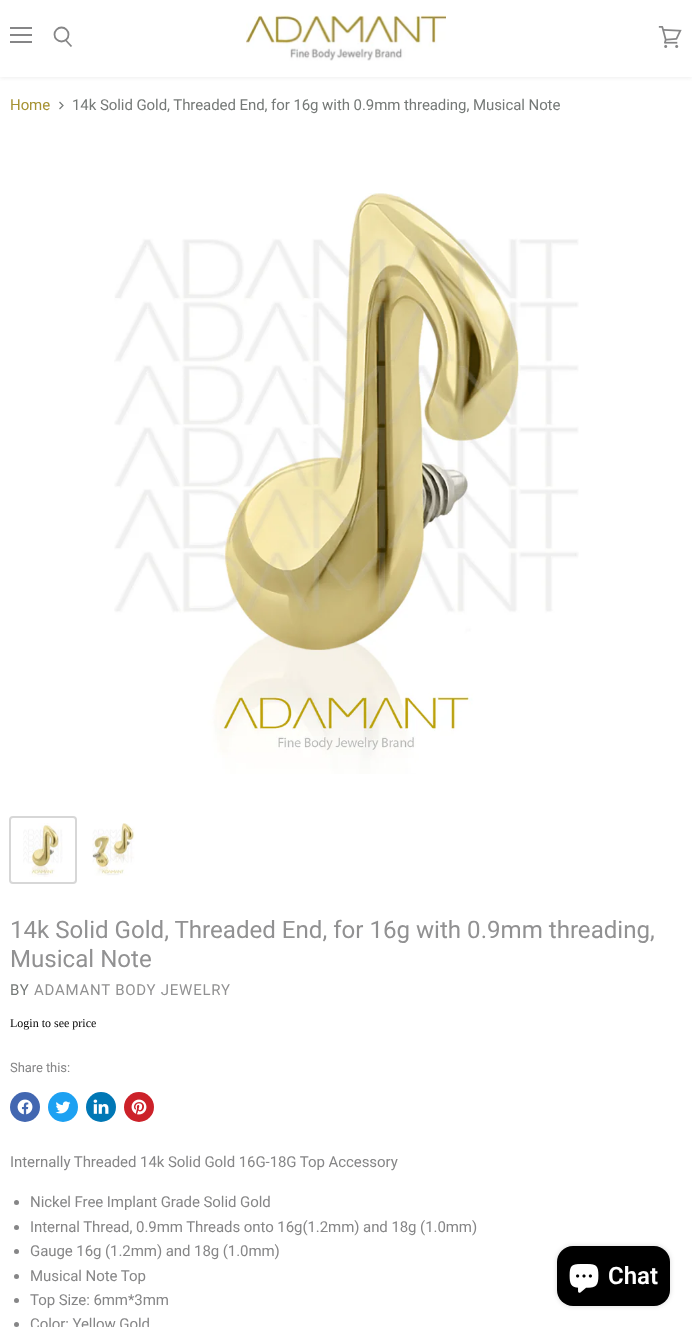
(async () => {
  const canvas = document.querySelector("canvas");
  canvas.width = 692;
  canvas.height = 1327;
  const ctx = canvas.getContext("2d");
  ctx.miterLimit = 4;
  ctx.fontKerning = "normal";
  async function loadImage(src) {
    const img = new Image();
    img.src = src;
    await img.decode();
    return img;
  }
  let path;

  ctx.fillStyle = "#ffffff";
  ctx.fillRect(0, 0, 692, 1327);
  ctx.save();
  ctx.beginPath();
  ctx.rect(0, 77, 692, 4);
  ctx.clip();
  ctx.fillStyle = "rgba(188, 187, 188, 0.25)";
  ctx.filter = "blur(2px)";
  ctx.beginPath();
  ctx.rect(0, 1, 692, 77);
  ctx.fill();
  ctx.filter = "none";
  ctx.restore();
  ctx.drawImage(await loadImage("img/1.png"), 246, 15, 200, 46);
  for (const [x, y, w, h, color] of [
    [10, 27, 22, 2, "#868687"],
    [10, 34, 22, 2, "#868687"],
    [10, 41, 22, 2, "#868687"],
  ]) {
    ctx.fillStyle = color;
    ctx.fillRect(x, y, w, h);
  }
  path = new Path2D("M71.5 46.5L65.5 40");
  ctx.strokeStyle = "#868687";
  ctx.lineWidth = 1.8;
  ctx.stroke(path);
  ctx.beginPath();
  ctx.arc(61.5, 34.5, 7, 0, Math.PI * 2);
  ctx.stroke();
  ctx.drawImage(await loadImage("img/2.png"), 658, 26, 24, 22);
  path = new Path2D("M59.5 109L63 105.5L59.5 102");
  ctx.strokeStyle = "#757977";
  ctx.lineWidth = 1.2;
  ctx.stroke(path);
  ctx.drawImage(await loadImage("img/3.png"), 114, 193, 465, 581);
  ctx.beginPath();
  ctx.roundRect(10, 817, 66, 66, 3);
  ctx.strokeStyle = "#d7d7d7";
  ctx.lineWidth = 2;
  ctx.stroke();
  ctx.drawImage(await loadImage("img/4.png"), 23, 823, 40, 54);
  ctx.drawImage(await loadImage("img/5.png"), 92, 823, 43, 53);
  ctx.fillStyle = "#4267b1";
  ctx.beginPath();
  ctx.arc(25, 1107, 15, 0, Math.PI * 2);
  ctx.fill();
  ctx.drawImage(await loadImage("img/6.png"), 17, 1099, 16, 16);
  ctx.fillStyle = "#1da1f2";
  ctx.beginPath();
  ctx.arc(63, 1107, 15, 0, Math.PI * 2);
  ctx.fill();
  ctx.drawImage(await loadImage("img/7.png"), 55, 1101, 16, 13);
  ctx.fillStyle = "#0077b5";
  ctx.beginPath();
  ctx.arc(101, 1107, 15, 0, Math.PI * 2);
  ctx.fill();
  ctx.drawImage(await loadImage("img/8.png"), 93, 1099, 16, 15);
  ctx.fillStyle = "#cc2129";
  ctx.beginPath();
  ctx.arc(139, 1107, 15, 0, Math.PI * 2);
  ctx.fill();
  ctx.drawImage(await loadImage("img/9.png"), 131, 1099, 16, 16);
  ctx.fillStyle = "#868687";
  ctx.beginPath();
  ctx.arc(16.5, 1202.5, 2.5, 0, Math.PI * 2);
  ctx.fill();
  ctx.beginPath();
  ctx.arc(16.5, 1227.5, 2.5, 0, Math.PI * 2);
  ctx.fill();
  ctx.beginPath();
  ctx.arc(16.5, 1251.5, 2.5, 0, Math.PI * 2);
  ctx.fill();
  ctx.beginPath();
  ctx.arc(16.5, 1276.5, 2.5, 0, Math.PI * 2);
  ctx.fill();
  ctx.beginPath();
  ctx.arc(16.5, 1300.5, 2.5, 0, Math.PI * 2);
  ctx.fill();
  ctx.beginPath();
  ctx.arc(16.5, 1324.5, 2.5, 0, Math.PI * 2);
  ctx.fill();
  ctx.fillStyle = "rgba(0, 0, 0, 0.15)";
  ctx.filter = "blur(2.5px)";
  ctx.beginPath();
  ctx.roundRect(557, 1246, 113, 60, 16);
  ctx.fill();
  ctx.filter = "none";
  ctx.fillStyle = "#000000";
  ctx.beginPath();
  ctx.roundRect(557, 1246, 113, 60, 16);
  ctx.fill();
  ctx.drawImage(await loadImage("img/10.png"), 569, 1264, 30, 29);
  ctx.letterSpacing = "-0.07px";
  ctx.font = "15px Roboto";
  ctx.fillStyle = "#a69232";
  ctx.fillText("Home", 10, 110);
  ctx.fillStyle = "#757977";
  ctx.fillText("14k Solid Gold, Threaded End, for 16g with 0.9mm threading, Musical Note", 72, 110);
  ctx.letterSpacing = "0px";
  ctx.font = "24.1px Roboto";
  ctx.fillStyle = "#919192";
  ctx.fillText("14k Solid Gold, Threaded End, for 16g with 0.9mm threading,", 10, 938);
  ctx.fillText("Musical Note", 10, 967);
  ctx.letterSpacing = "0.75px";
  ctx.font = "15px Roboto";
  ctx.fillStyle = "#757977";
  ctx.fillText("BY", 10, 995);
  ctx.fillStyle = "#919192";
  ctx.fillText("ADAMANT BODY JEWELRY", 34, 995);
  ctx.letterSpacing = "0px";
  ctx.font = "12px Liberation Serif";
  ctx.fillStyle = "#000000";
  ctx.fillText("Login to see price", 10, 1027);
  ctx.letterSpacing = "-0.07px";
  ctx.font = "13px Roboto";
  ctx.fillStyle = "#868687";
  ctx.fillText("Share this:", 10, 1072);
  ctx.font = "15px Roboto";
  for (const [text, x, y] of [
    ["Internally Threaded 14k Solid Gold 16G-18G Top Accessory", 10, 1167],
    ["Nickel Free Implant Grade Solid Gold", 30, 1207],
    ["Internal Thread, 0.9mm Threads onto 16g(1.2mm) and 18g (1.0mm)", 30, 1232],
    ["Gauge 16g (1.2mm) and 18g (1.0mm)", 30, 1256],
    ["Musical Note Top", 30, 1281],
    ["Top Size: 6mm*3mm", 30, 1305],
    ["Color: Yellow Gold", 30, 1329],
  ]) {
    ctx.fillText(text, x, y);
  }
  ctx.letterSpacing = "0px";
  ctx.font = "600 24px Roboto";
  ctx.fillStyle = "#ffffff";
  ctx.fillText("Chat", 608, 1284);
})();
